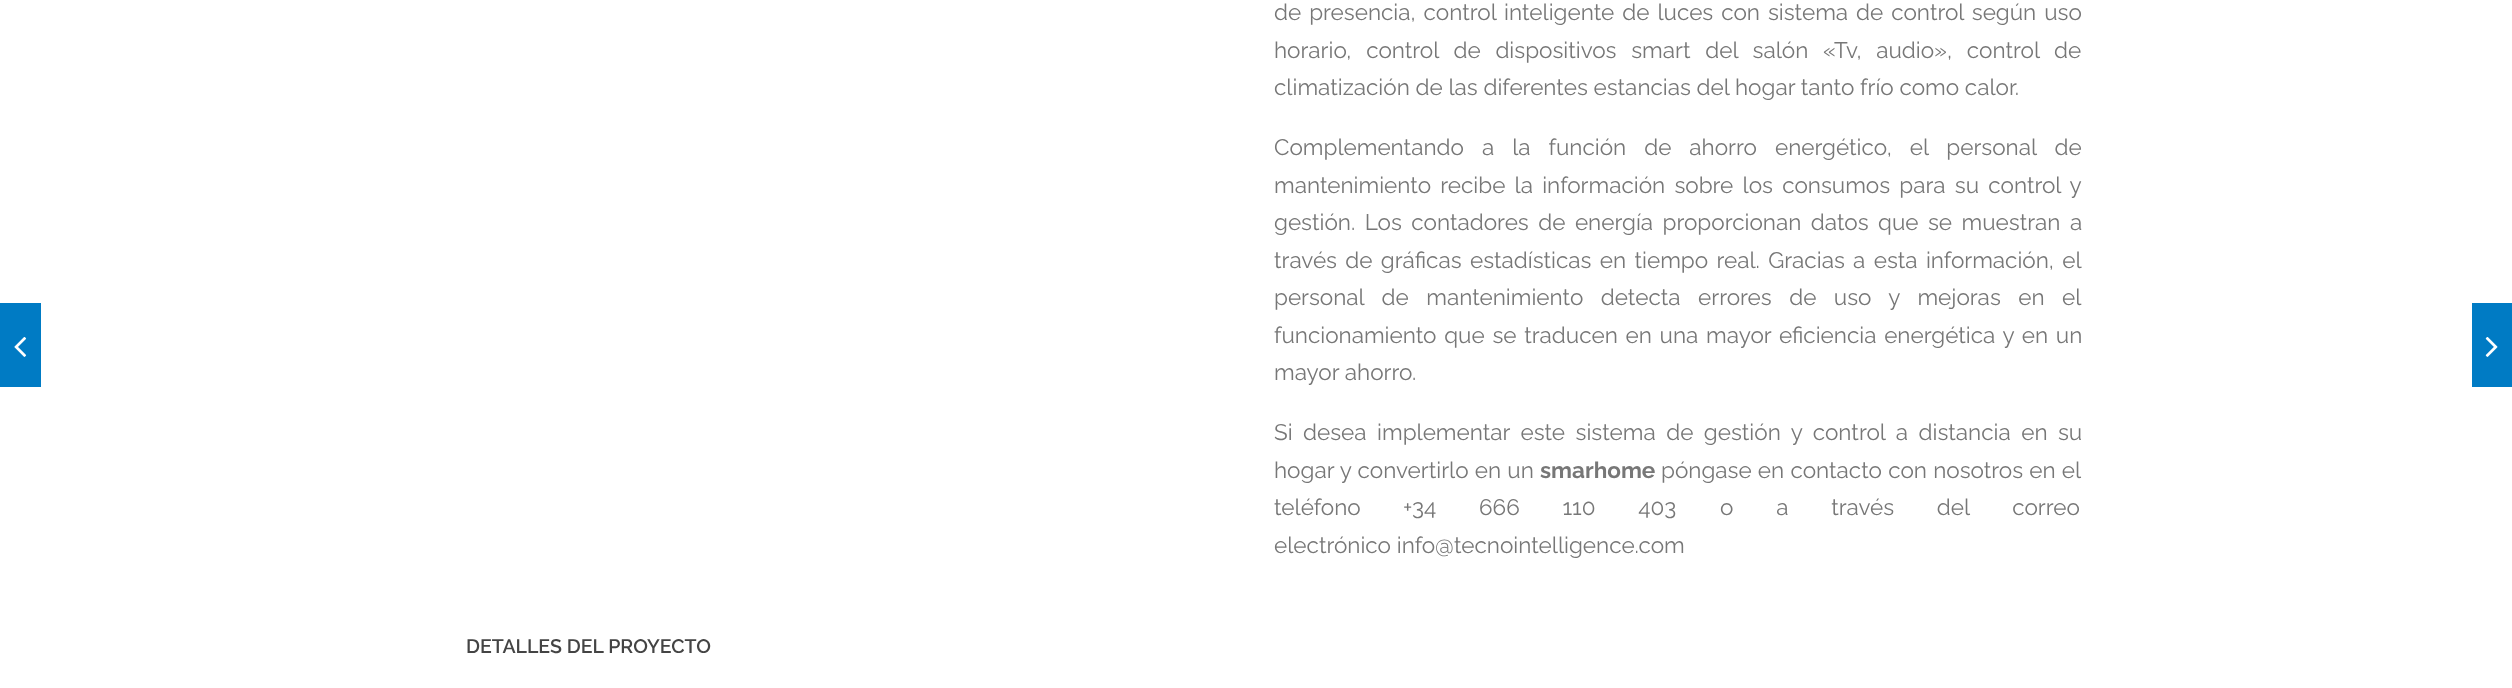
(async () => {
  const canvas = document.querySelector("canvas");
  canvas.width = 2512;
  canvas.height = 688;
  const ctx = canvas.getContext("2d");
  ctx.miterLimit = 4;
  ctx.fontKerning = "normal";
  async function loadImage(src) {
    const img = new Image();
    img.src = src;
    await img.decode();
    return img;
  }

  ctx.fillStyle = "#ffffff";
  ctx.fillRect(0, 0, 2512, 688);
  ctx.fillStyle = "#007bc4";
  ctx.fillRect(0, 303, 41, 84);
  ctx.drawImage(await loadImage("img/1.png"), 14, 337, 13, 20);
  ctx.fillRect(2472, 303, 40, 84);
  ctx.drawImage(await loadImage("img/2.png"), 2485, 337, 13, 20);
  ctx.wordSpacing = "2.25px";
  ctx.font = "22.5px Raleway";
  ctx.fillStyle = "#777777";
  ctx.fillText("de presencia, control inteligente de luces con sistema de control según uso", 1274, 20);
  ctx.wordSpacing = "9px";
  ctx.fillText("horario, control de dispositivos smart del salón «Tv, audio», control de", 1274, 58);
  ctx.wordSpacing = "0px";
  ctx.fillText("climatización de las diferentes estancias del hogar tanto frío como calor.", 1274, 95);
  ctx.wordSpacing = "12.25px";
  ctx.fillText("Complementando a la función de ahorro energético, el personal de", 1274, 155);
  ctx.wordSpacing = "3.5px";
  ctx.fillText("mantenimiento recibe la información sobre los consumos para su control y", 1274, 193);
  ctx.wordSpacing = "3.75px";
  ctx.fillText("gestión. Los contadores de energía proporcionan datos que se muestran a", 1274, 230);
  ctx.wordSpacing = "2.6px";
  ctx.fillText("través de gráficas estadísticas en tiempo real. Gracias a esta información, el", 1274, 268);
  ctx.wordSpacing = "11.75px";
  ctx.fillText("personal de mantenimiento detecta errores de uso y mejoras en el", 1274, 305);
  ctx.wordSpacing = "2px";
  ctx.fillText("funcionamiento que se traducen en una mayor eficiencia energética y en un", 1274, 343);
  ctx.wordSpacing = "0px";
  ctx.fillText("mayor ahorro.", 1274, 380);
  ctx.wordSpacing = "4.75px";
  ctx.fillText("Si desea implementar este sistema de gestión y control a distancia en su", 1274, 440);
  ctx.wordSpacing = "0.5px";
  ctx.fillText("hogar y convertirlo en un", 1274, 478);
  ctx.wordSpacing = "0px";
  ctx.font = "bold 22.5px Raleway";
  ctx.fillText("smarhome", 1540, 478);
  ctx.wordSpacing = "0.5px";
  ctx.font = "22.5px Raleway";
  ctx.fillText("póngase en contacto con nosotros en el", 1661, 478);
  ctx.wordSpacing = "0px";
  ctx.fillText("teléfono", 1274, 515);
  ctx.wordSpacing = "37px";
  ctx.fillText("+34 666 110 403", 1403, 515);
  ctx.fillText("o a través del correo", 1720, 515);
  ctx.wordSpacing = "0px";
  ctx.fillText("electrónico info@tecnointelligence.com", 1274, 553);
  ctx.font = "600 19.5px Raleway";
  ctx.fillStyle = "#444444";
  ctx.fillText("DETALLES DEL PROYECTO", 466, 653);
})();
